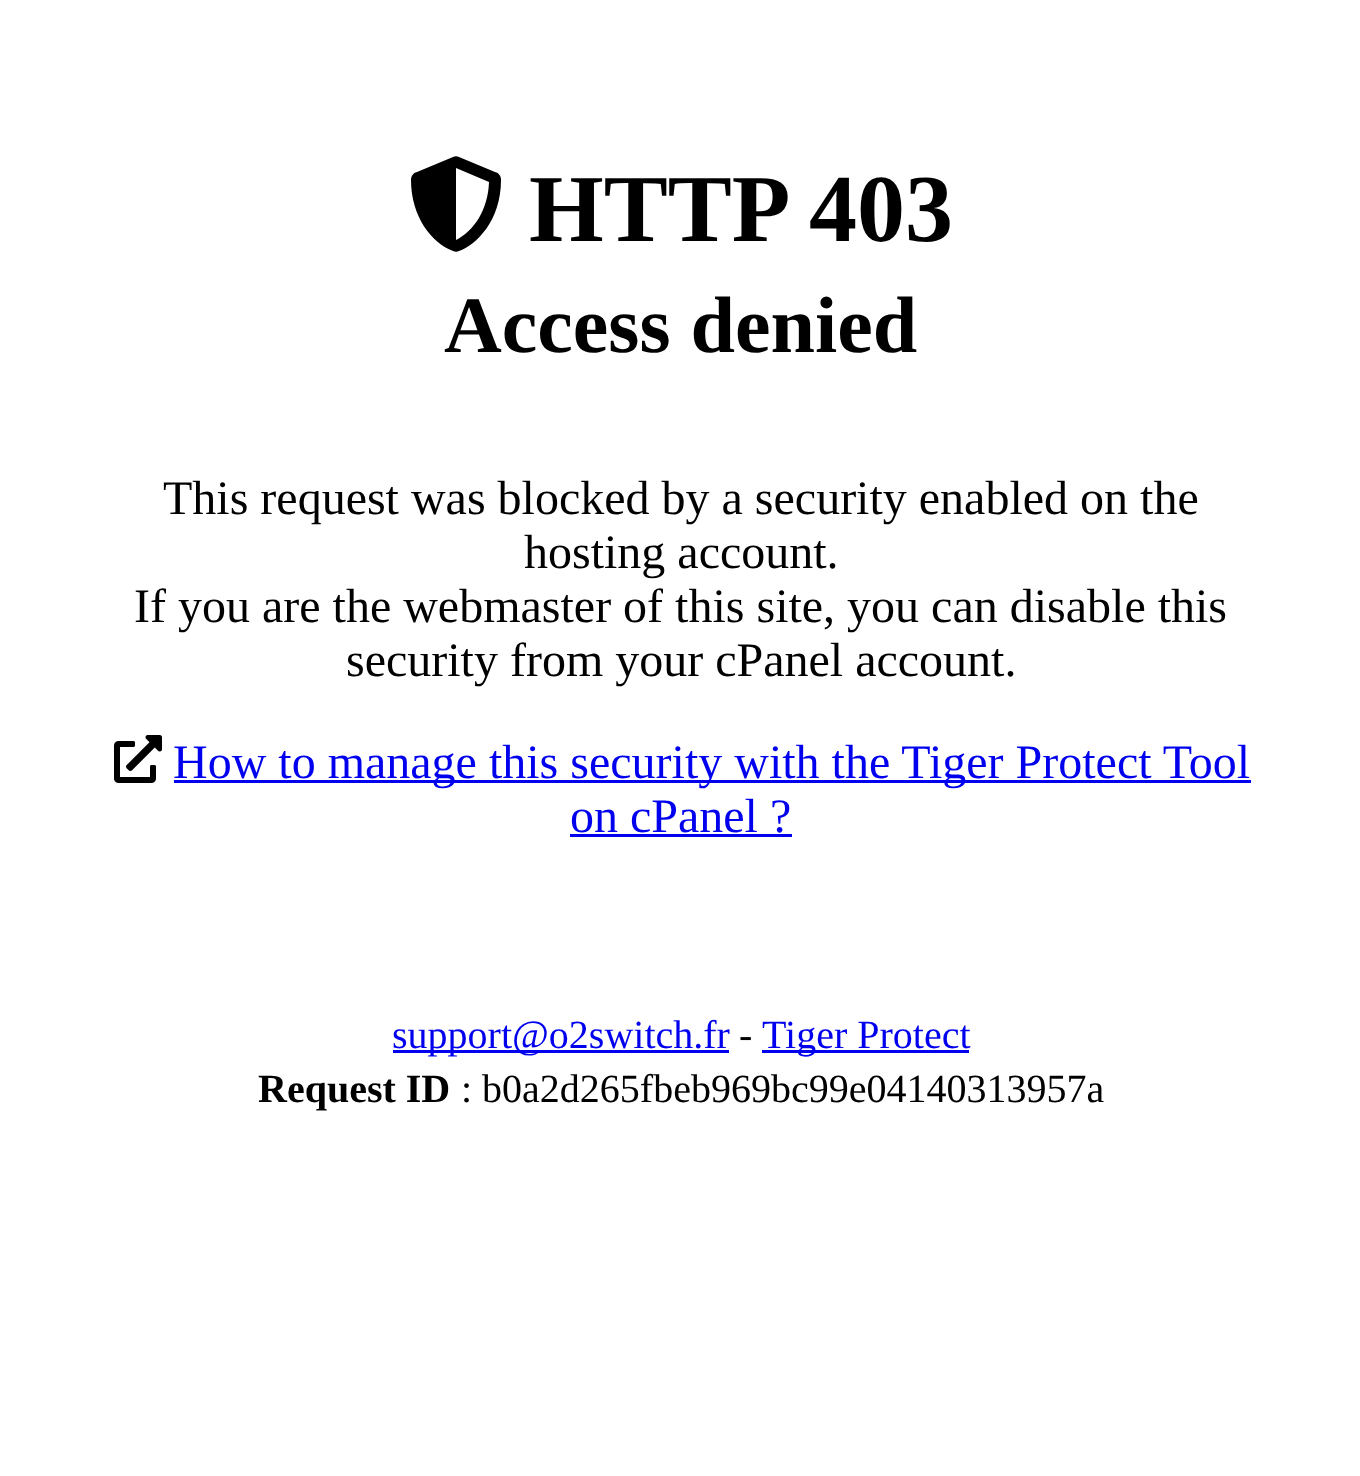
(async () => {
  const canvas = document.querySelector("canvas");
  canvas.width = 1360;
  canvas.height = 1476;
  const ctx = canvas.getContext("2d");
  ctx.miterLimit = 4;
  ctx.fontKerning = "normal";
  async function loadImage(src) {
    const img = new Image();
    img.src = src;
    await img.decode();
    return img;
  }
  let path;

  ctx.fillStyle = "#ffffff";
  ctx.fillRect(0, 0, 1360, 1476);
  ctx.fillStyle = "#000000";
  path = new Path2D("M495 172L459 157C457 156 455 156 453 157L417 172C413 173 411 176 411 180C411 217 432 243 453 251C455 252 457 252 459 251C476 245 501 221 501 180C501 176 499 173 495 172ZM456 240V168L489 182C488 210 474 231 456 240Z");
  ctx.fill(path);
  ctx.drawImage(await loadImage("img/1.png"), 114, 735, 48, 48);
  for (const [x, y, w, h, color] of [
    [174, 780, 1077, 3, "#0000ee"],
    [570, 834, 222, 3, "#0000ee"],
    [393, 1050, 336, 3, "#0000ee"],
    [762, 1050, 207, 3, "#0000ee"],
  ]) {
    ctx.fillStyle = color;
    ctx.fillRect(x, y, w, h);
  }
  ctx.font = "bold 96px Liberation Serif";
  ctx.fillStyle = "#000000";
  ctx.fillText("HTTP 403", 529, 241);
  ctx.font = "bold 80px Liberation Serif";
  ctx.fillText("Access denied", 444, 352);
  ctx.font = "48px Liberation Serif";
  for (const [text, x, y] of [
    ["This request was blocked by a security enabled on the", 163, 514],
    ["hosting account.", 524, 568],
    ["If you are the webmaster of this site, you can disable this", 134, 622],
    ["security from your cPanel account.", 346, 676],
  ]) {
    ctx.fillText(text, x, y);
  }
  ctx.fillStyle = "#0000ee";
  ctx.fillText("How to manage this security with the Tiger Protect Tool", 173, 778);
  ctx.fillText("on cPanel ?", 570, 832);
  ctx.font = "40px Liberation Serif";
  ctx.fillText("support@o2switch.fr", 392, 1048);
  ctx.fillStyle = "#000000";
  ctx.fillText("-", 739, 1048);
  ctx.fillStyle = "#0000ee";
  ctx.fillText("Tiger Protect", 762, 1048);
  ctx.font = "bold 40px Liberation Serif";
  ctx.fillStyle = "#000000";
  ctx.fillText("Request ID", 258, 1102);
  ctx.font = "40px Liberation Serif";
  ctx.fillText(": b0a2d265fbeb969bc99e04140313957a", 461, 1102);
})();
